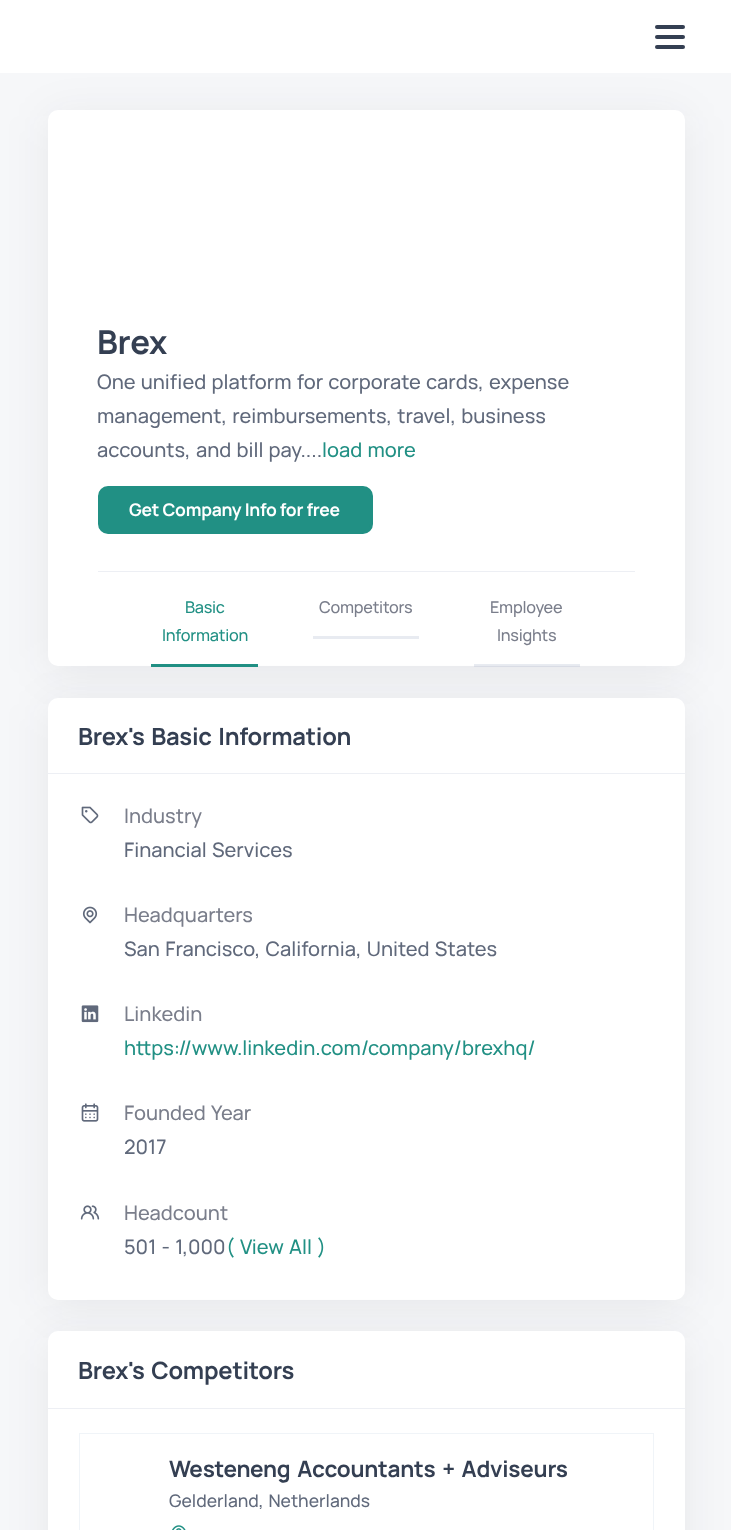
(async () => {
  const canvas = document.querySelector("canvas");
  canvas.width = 731;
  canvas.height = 1530;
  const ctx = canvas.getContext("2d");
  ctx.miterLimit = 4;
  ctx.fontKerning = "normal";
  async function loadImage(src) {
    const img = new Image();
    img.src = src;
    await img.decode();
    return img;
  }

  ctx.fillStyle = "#ffffff";
  ctx.fillRect(0, 0, 731, 1530);
  ctx.fillStyle = "#343f52";
  ctx.beginPath();
  ctx.roundRect(655, 25, 30, 4, 2);
  ctx.fill();
  ctx.beginPath();
  ctx.roundRect(655, 35, 30, 4, 2);
  ctx.fill();
  ctx.beginPath();
  ctx.roundRect(655, 45, 30, 4, 2);
  ctx.fill();
  ctx.fillStyle = "#f6f7f9";
  ctx.fillRect(0, 73, 731, 1457);
  ctx.fillStyle = "rgba(30, 34, 40, 0.07)";
  ctx.filter = "blur(22px)";
  ctx.beginPath();
  ctx.roundRect(48, 116, 637, 557, 10);
  ctx.fill();
  ctx.filter = "none";
  ctx.fillStyle = "#ffffff";
  ctx.beginPath();
  ctx.roundRect(48, 110, 637, 556, 10);
  ctx.fill();
  ctx.fillStyle = "#219084";
  ctx.beginPath();
  ctx.roundRect(99.5, 487.5, 272, 45, 8.5);
  ctx.fill();
  ctx.strokeStyle = "#219084";
  ctx.lineWidth = 3;
  ctx.stroke();
  for (const [x, y, w, h, color] of [
    [98, 571, 537, 1, "#edeff4"],
    [151, 664, 107, 3, "#219084"],
    [313, 636, 106, 3, "#e8ebf1"],
    [474, 664, 106, 3, "rgba(164, 174, 198, 0.25)"],
  ]) {
    ctx.fillStyle = color;
    ctx.fillRect(x, y, w, h);
  }
  ctx.fillStyle = "rgba(30, 34, 40, 0.07)";
  ctx.filter = "blur(22px)";
  ctx.beginPath();
  ctx.roundRect(48, 704, 637, 602, 10);
  ctx.fill();
  ctx.filter = "none";
  ctx.fillStyle = "#ffffff";
  ctx.beginPath();
  ctx.roundRect(48, 698, 637, 602, 10);
  ctx.fill();
  ctx.fillStyle = "#edeff4";
  ctx.fillRect(48, 773, 637, 1);
  ctx.drawImage(await loadImage("img/1.png"), 81, 806, 18, 18);
  ctx.drawImage(await loadImage("img/2.png"), 82, 906, 16, 18);
  ctx.drawImage(await loadImage("img/3.png"), 81, 1005, 18, 18);
  ctx.drawImage(await loadImage("img/4.png"), 81, 1103, 18, 19);
  ctx.drawImage(await loadImage("img/5.png"), 80, 1205, 20, 15);
  ctx.fillStyle = "rgba(30, 34, 40, 0.07)";
  ctx.filter = "blur(22px)";
  ctx.beginPath();
  ctx.roundRect(48, 1338, 637, 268, 10);
  ctx.fill();
  ctx.filter = "none";
  ctx.fillStyle = "#ffffff";
  ctx.beginPath();
  ctx.roundRect(48, 1331, 637, 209, 10);
  ctx.fill();
  ctx.fillStyle = "#edeff4";
  ctx.fillRect(48, 1408, 637, 1);
  ctx.strokeStyle = "rgba(8, 60, 130, 0.06)";
  ctx.lineWidth = 1;
  ctx.strokeRect(79.5, 1433.5, 574, 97);
  ctx.fillStyle = "#ffffff";
  ctx.beginPath();
  ctx.roundRect(80, 1434, 573, 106, 10);
  ctx.fill();
  ctx.drawImage(await loadImage("img/6.png"), 172, 1525, 14, 5);
  ctx.letterSpacing = "-0.25px";
  ctx.font = "bold 33px Manrope";
  ctx.fillStyle = "#343f52";
  ctx.fillText("Brex", 97, 354);
  ctx.letterSpacing = "0px";
  ctx.wordSpacing = "1.25px";
  ctx.font = "500 20px Manrope";
  ctx.fillStyle = "#60697b";
  for (const [text, x, y] of [
    ["One unified platform for corporate cards, expense", 97, 389],
    ["management, reimbursements, travel, business", 97, 423],
    ["accounts, and bill pay....", 97, 457],
  ]) {
    ctx.fillText(text, x, y);
  }
  ctx.fillStyle = "#219084";
  ctx.fillText("load more", 322, 457);
  ctx.letterSpacing = "-0.25px";
  ctx.wordSpacing = "0px";
  ctx.font = "bold 17.5px Manrope";
  ctx.fillStyle = "#ffffff";
  ctx.fillText("Get Company Info for free", 129, 516);
  ctx.font = "500 16.25px Manrope";
  ctx.fillStyle = "#219084";
  ctx.fillText("Basic", 185, 613);
  ctx.fillText("Information", 162, 641);
  ctx.fillStyle = "#7a7e8b";
  for (const [text, x, y] of [
    ["Competitors", 319, 613],
    ["Employee", 490, 613],
    ["Insights", 497, 641],
  ]) {
    ctx.fillText(text, x, y);
  }
  ctx.font = "bold 23.75px Manrope";
  ctx.fillStyle = "#343f52";
  ctx.fillText("Brex", 78, 745);
  ctx.wordSpacing = "2px";
  ctx.fillText("'s Basic Information", 128, 745);
  ctx.letterSpacing = "0px";
  ctx.wordSpacing = "0px";
  ctx.font = "500 20px Manrope";
  ctx.fillStyle = "#7a7e8b";
  ctx.fillText("Industry", 124, 823);
  ctx.wordSpacing = "1.25px";
  ctx.fillStyle = "#60697b";
  ctx.fillText("Financial Services", 124, 857);
  ctx.wordSpacing = "0px";
  ctx.fillStyle = "#7a7e8b";
  ctx.fillText("Headquarters", 124, 922);
  ctx.wordSpacing = "1.25px";
  ctx.fillStyle = "#60697b";
  ctx.fillText("San Francisco, California, United States", 124, 956);
  ctx.wordSpacing = "0px";
  ctx.fillStyle = "#7a7e8b";
  ctx.fillText("Linkedin", 124, 1021);
  ctx.fillStyle = "#219084";
  ctx.fillText("https://www.linkedin.com/company/brexhq/", 124, 1055);
  ctx.wordSpacing = "1.25px";
  ctx.fillStyle = "#7a7e8b";
  ctx.fillText("Founded Year", 124, 1120);
  ctx.wordSpacing = "0px";
  ctx.fillStyle = "#60697b";
  ctx.fillText("2017", 124, 1154);
  ctx.fillStyle = "#7a7e8b";
  ctx.fillText("Headcount", 124, 1220);
  ctx.wordSpacing = "1.25px";
  ctx.fillStyle = "#60697b";
  ctx.fillText("501 - 1,000", 124, 1254);
  ctx.fillStyle = "#219084";
  ctx.fillText("( View All )", 226, 1254);
  ctx.letterSpacing = "-0.25px";
  ctx.wordSpacing = "0px";
  ctx.font = "bold 23.75px Manrope";
  ctx.fillStyle = "#343f52";
  ctx.fillText("Brex", 78, 1379);
  ctx.wordSpacing = "2px";
  ctx.fillText("'s Competitors", 128, 1379);
  ctx.wordSpacing = "2.5px";
  ctx.font = "bold 22.5px Manrope";
  ctx.fillText("Westeneng Accountants + Adviseurs", 169, 1477);
  ctx.letterSpacing = "0px";
  ctx.wordSpacing = "1.25px";
  ctx.font = "500 17.5px Manrope";
  ctx.fillStyle = "#60697b";
  ctx.fillText("Gelderland, Netherlands", 169, 1507);
})();
